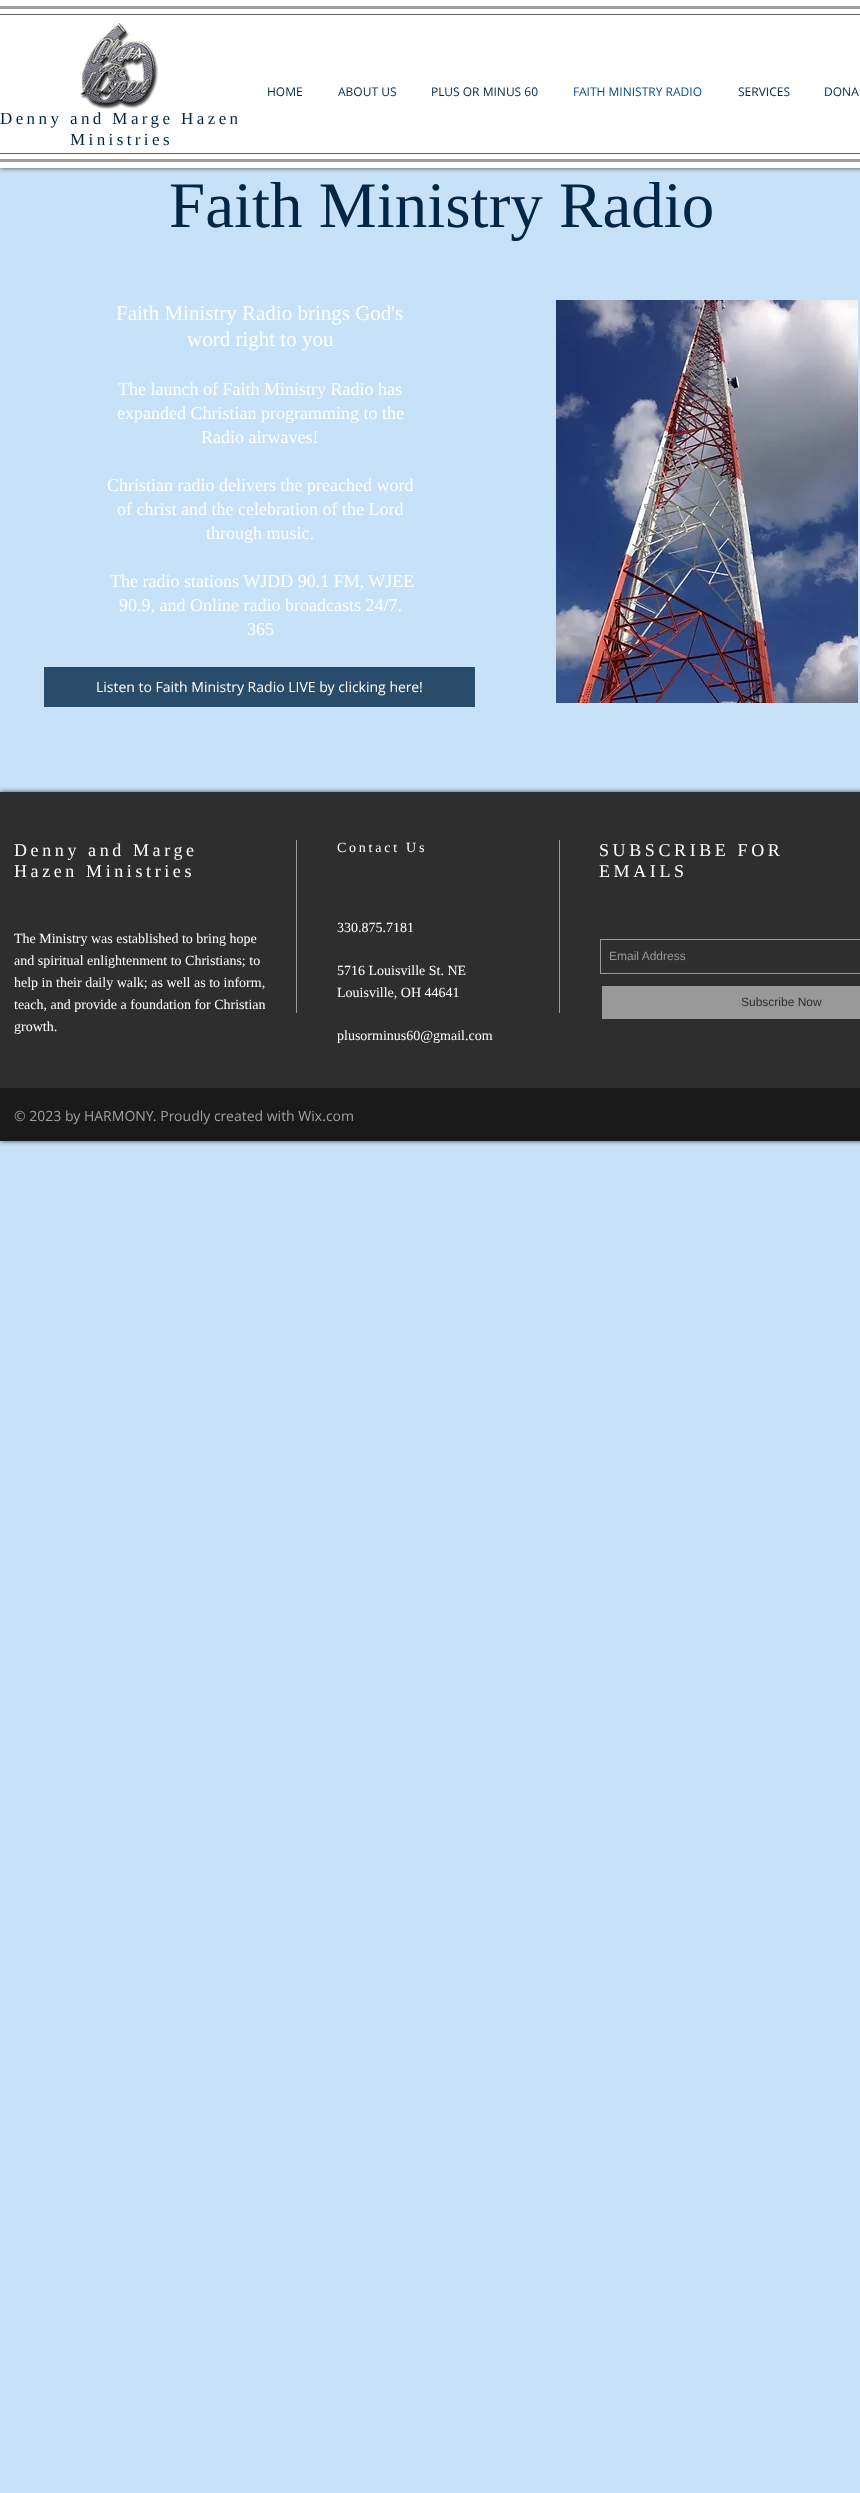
(async () => {
  const canvas = document.querySelector("canvas");
  canvas.width = 860;
  canvas.height = 2493;
  const ctx = canvas.getContext("2d");
  ctx.miterLimit = 4;
  ctx.fontKerning = "normal";
  async function loadImage(src) {
    const img = new Image();
    img.src = src;
    await img.decode();
    return img;
  }

  ctx.fillStyle = "#c7e2f8";
  ctx.fillRect(0, 0, 860, 2493);
  ctx.fillStyle = "rgba(0, 0, 0, 0.7)";
  ctx.filter = "blur(2.5px)";
  ctx.beginPath();
  ctx.rect(0, 0, 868, 168);
  ctx.fill();
  ctx.filter = "none";
  for (const [x, y, w, h, color] of [
    [0, 0, 860, 168, "#ffffff"],
    [0, 6, 860, 3, "#a0a09f"],
    [0, 159, 860, 3, "#a0a09f"],
    [0, 14, 860, 1, "#605e5e"],
    [0, 153, 860, 1, "#605e5e"],
  ]) {
    ctx.fillStyle = color;
    ctx.fillRect(x, y, w, h);
  }
  ctx.drawImage(await loadImage("img/1.png"), 80, 23, 78, 87);
  ctx.drawImage(await loadImage("img/2.png"), 556, 300, 302, 403);
  ctx.fillStyle = "#294c6a";
  ctx.fillRect(44, 667, 431, 40);
  ctx.fillStyle = "rgba(0, 0, 0, 0.7)";
  ctx.filter = "blur(2.5px)";
  ctx.beginPath();
  ctx.rect(0, 792, 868, 349);
  ctx.fill();
  ctx.filter = "none";
  for (const [x, y, w, h, color] of [
    [0, 792, 860, 296, "#2f2e2e"],
    [296, 840, 1, 173, "#999999"],
    [559, 840, 1, 173, "#999999"],
  ]) {
    ctx.fillStyle = color;
    ctx.fillRect(x, y, w, h);
  }
  ctx.strokeStyle = "#999999";
  ctx.strokeRect(600.5, 939.5, 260, 34);
  ctx.fillRect(602, 986, 258, 33);
  ctx.fillStyle = "#1b1a1a";
  ctx.fillRect(0, 1088, 860, 53);
  ctx.font = "12px Open Sans";
  ctx.fillStyle = "#012646";
  for (const [text, x, y] of [
    ["HOME", 267, 96],
    ["ABOUT US", 338, 96],
    ["PLUS OR MINUS 60", 431, 96],
  ]) {
    ctx.fillText(text, x, y);
  }
  ctx.fillStyle = "#034c8c";
  ctx.fillText("FAITH MINISTRY RADIO", 573, 96);
  ctx.fillStyle = "#012646";
  ctx.fillText("SERVICES", 738, 96);
  ctx.fillText("DONA", 824, 96);
  ctx.letterSpacing = "3.4px";
  ctx.font = "17px Liberation Serif";
  ctx.fillText("Denny and Marge Hazen", 0, 124);
  ctx.fillText("Ministries", 70, 145);
  ctx.letterSpacing = "0px";
  ctx.font = "65px Liberation Serif";
  ctx.fillText("Faith Ministry Radio", 169, 227);
  ctx.font = "21px Liberation Serif";
  ctx.fillStyle = "#ffffff";
  ctx.fillText("Faith Ministry Radio brings God's", 116, 320);
  ctx.fillText("word right to you", 187, 346);
  ctx.font = "18px Liberation Serif";
  for (const [text, x, y] of [
    ["The launch of Faith Ministry Radio has", 118, 395],
    ["expanded Christian programming to the", 117, 419],
    ["Radio airwaves!", 201, 443],
    ["Christian radio delivers the preached word", 107, 491],
    ["of christ and the celebration of the Lord", 117, 515],
    ["through music.", 206, 539],
    ["The radio stations WJDD 90.1 FM, WJEE", 110, 587],
    ["90.9, and Online radio broadcasts 24/7.", 119, 611],
    ["365", 247, 635],
  ]) {
    ctx.fillText(text, x, y);
  }
  ctx.font = "14px Open Sans";
  ctx.fillText("Listen to Faith Ministry Radio LIVE by clicking here!", 96, 692);
  ctx.letterSpacing = "3.6px";
  ctx.font = "18px Liberation Serif";
  ctx.fillText("Denny and Marge", 14, 856);
  ctx.fillText("Hazen Ministries", 14, 877);
  ctx.letterSpacing = "2.75px";
  ctx.font = "14px Liberation Serif";
  ctx.fillText("Contact Us", 337, 852);
  ctx.letterSpacing = "3.6px";
  ctx.font = "18px Liberation Serif";
  ctx.fillText("SUBSCRIBE FOR", 599, 856);
  ctx.fillText("EMAILS", 599, 877);
  ctx.letterSpacing = "0px";
  ctx.font = "14px Liberation Serif";
  for (const [text, x, y] of [
    ["The Ministry was established to bring hope", 14, 943],
    ["and spiritual enlightenment to Christians; to", 14, 965],
    ["help in their daily walk; as well as to inform,", 14, 987],
    ["teach, and provide a foundation for Christian", 14, 1009],
    ["growth.", 14, 1031],
    ["330.875.7181", 337, 932],
    ["5716 Louisville St. NE", 337, 975],
    ["Louisville, OH 44641", 337, 997],
    ["plusorminus60@gmail.com", 337, 1040],
  ]) {
    ctx.fillText(text, x, y);
  }
  ctx.font = "12px Liberation Sans";
  ctx.fillStyle = "#999999";
  ctx.fillText("Email Address", 609, 960);
  ctx.fillStyle = "#2f2e2e";
  ctx.fillText("Subscribe Now", 741, 1006);
  ctx.font = "14px Open Sans";
  ctx.fillStyle = "#a0a09f";
  ctx.fillText("© 2023 by HARMONY. Proudly created with Wix.com", 14, 1121);
})();
